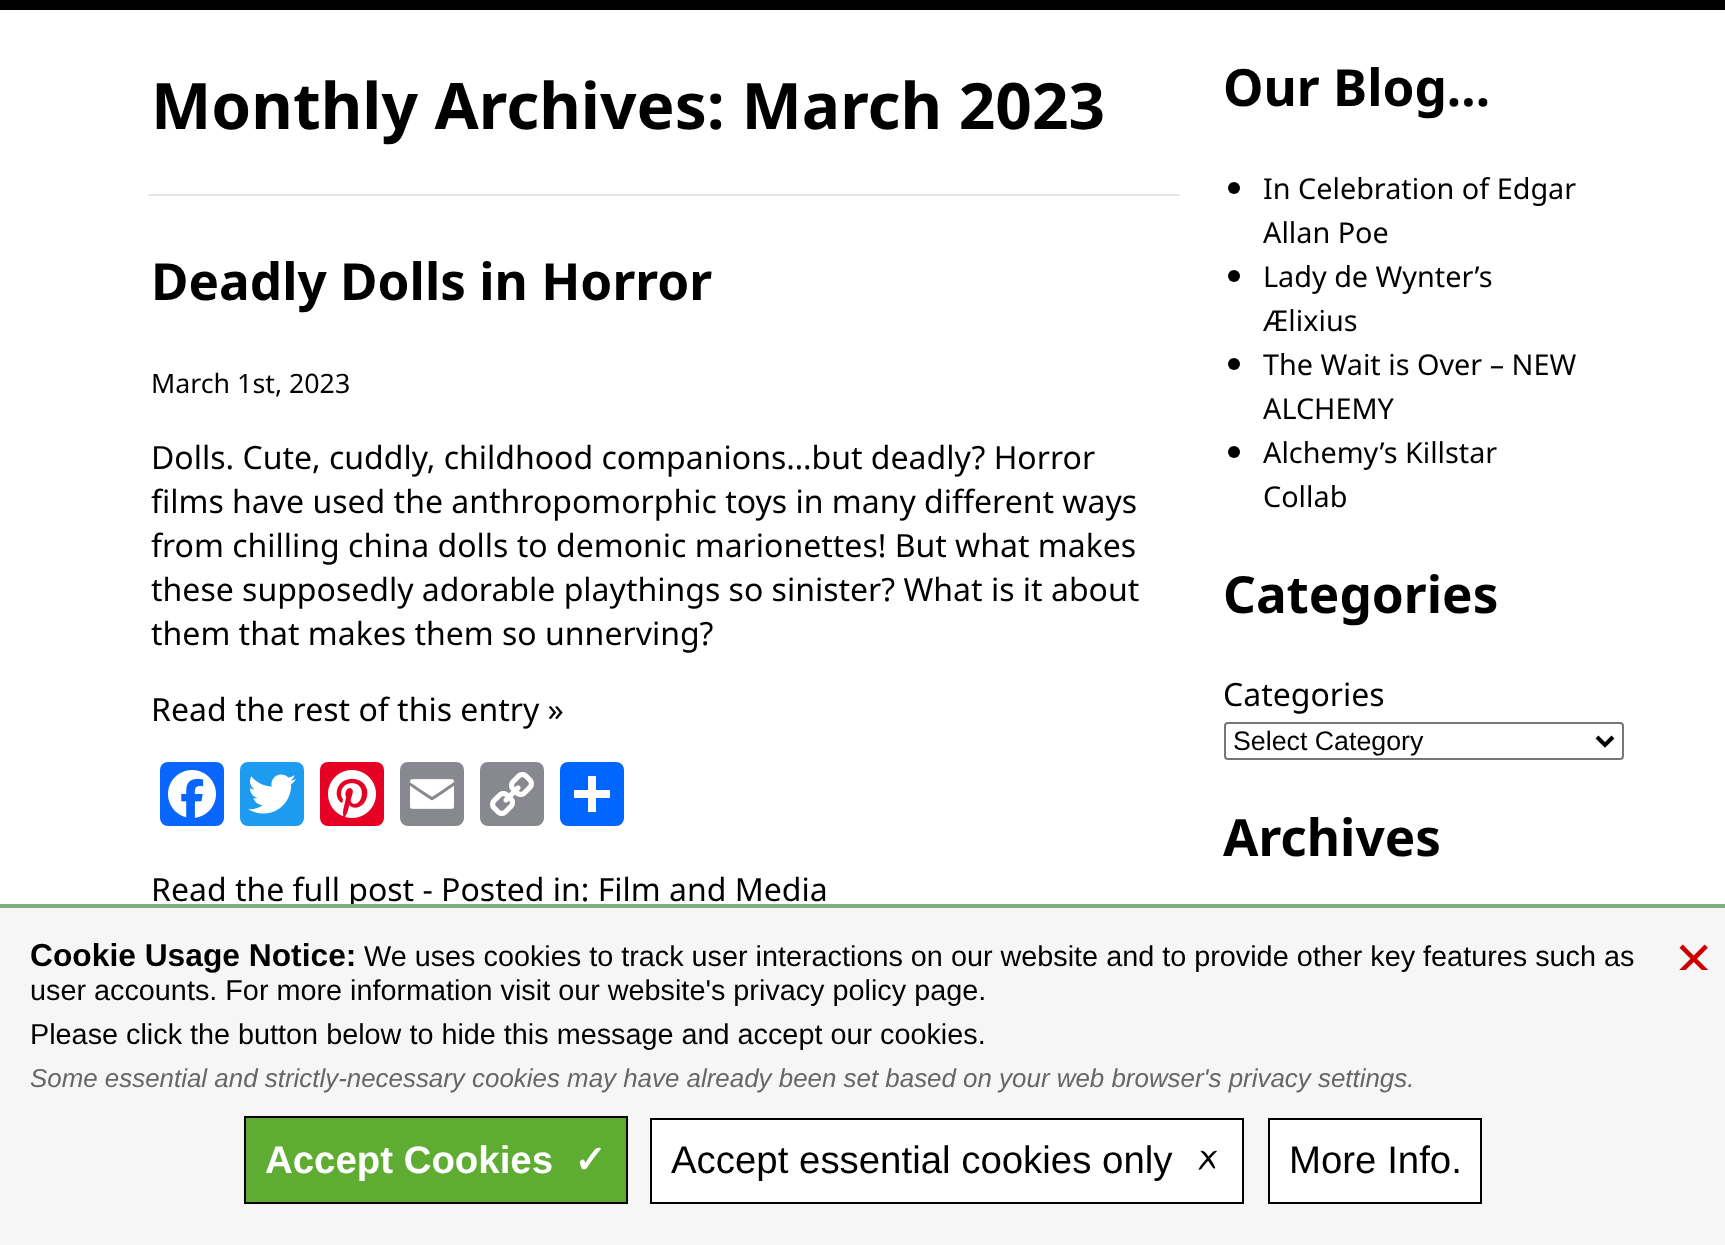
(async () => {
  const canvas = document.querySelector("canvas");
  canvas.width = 1725;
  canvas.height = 1245;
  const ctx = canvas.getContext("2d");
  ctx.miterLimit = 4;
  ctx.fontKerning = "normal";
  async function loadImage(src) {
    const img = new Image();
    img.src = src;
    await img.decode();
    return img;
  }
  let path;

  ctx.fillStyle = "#ffffff";
  ctx.fillRect(0, 0, 1725, 1245);
  ctx.fillStyle = "#000000";
  ctx.fillRect(0, 0, 1725, 10);
  ctx.fillStyle = "#e6e6e6";
  ctx.fillRect(148, 194, 1032, 2);
  ctx.fillStyle = "#0866ff";
  ctx.beginPath();
  ctx.roundRect(160, 762, 64, 64, 8);
  ctx.fill();
  ctx.drawImage(await loadImage("img/1.png"), 168, 770, 48, 48);
  ctx.fillStyle = "#1d9bf0";
  ctx.beginPath();
  ctx.roundRect(240, 762, 64, 64, 8);
  ctx.fill();
  ctx.drawImage(await loadImage("img/2.png"), 248, 774, 48, 40);
  ctx.fillStyle = "#e60023";
  ctx.beginPath();
  ctx.roundRect(320, 762, 64, 64, 8);
  ctx.fill();
  ctx.drawImage(await loadImage("img/3.png"), 328, 770, 48, 48);
  ctx.fillStyle = "#888990";
  ctx.beginPath();
  ctx.roundRect(400, 762, 64, 64, 8);
  ctx.fill();
  ctx.drawImage(await loadImage("img/4.png"), 410, 779, 44, 30);
  ctx.beginPath();
  ctx.roundRect(480, 762, 64, 64, 8);
  ctx.fill();
  ctx.drawImage(await loadImage("img/5.png"), 490, 772, 44, 44);
  ctx.fillStyle = "#0166ff";
  ctx.beginPath();
  ctx.roundRect(560, 762, 64, 64, 8);
  ctx.fill();
  ctx.fillStyle = "#ffffff";
  ctx.fillRect(588, 776, 8, 36);
  ctx.fillRect(574, 790, 36, 8);
  ctx.fillStyle = "#000000";
  ctx.beginPath();
  ctx.arc(1234, 188, 6, 0, Math.PI * 2);
  ctx.fill();
  ctx.beginPath();
  ctx.arc(1234, 276, 6, 0, Math.PI * 2);
  ctx.fill();
  ctx.beginPath();
  ctx.arc(1234, 364, 6, 0, Math.PI * 2);
  ctx.fill();
  ctx.beginPath();
  ctx.arc(1234, 452, 6, 0, Math.PI * 2);
  ctx.fill();
  ctx.beginPath();
  ctx.roundRect(1225, 723, 398, 36, 3);
  ctx.strokeStyle = "#767676";
  ctx.lineWidth = 2;
  ctx.stroke();
  path = new Path2D("M1597 737L1605 745L1613 737");
  ctx.strokeStyle = "#000000";
  ctx.lineWidth = 4;
  ctx.stroke(path);
  ctx.font = "bold 64px Noto Sans";
  ctx.fillText("Monthly Archives: March 2023", 151, 129);
  ctx.font = "bold 51.25px Noto Sans";
  ctx.fillText("Deadly Dolls in Horror", 151, 300);
  ctx.font = "26.75px Noto Sans";
  ctx.fillText("March 1st, 2023", 151, 393);
  ctx.font = "32px Noto Sans";
  for (const [text, x, y] of [
    ["Dolls. Cute, cuddly, childhood companions…but deadly? Horror", 151, 469],
    ["films have used the anthropomorphic toys in many different ways", 151, 513],
    ["from chilling china dolls to demonic marionettes! But what makes", 151, 557],
    ["these supposedly adorable playthings so sinister? What is it about", 151, 601],
    ["them that makes them so unnerving?", 151, 645],
    ["Read the rest of this entry »", 151, 721],
    ["Read the full post - Posted in: Film and Media", 151, 901],
  ]) {
    ctx.fillText(text, x, y);
  }
  ctx.font = "bold 51.25px Noto Sans";
  ctx.fillText("Our Blog...", 1223, 106);
  ctx.font = "28.8px Noto Sans";
  for (const [text, x, y] of [
    ["In Celebration of Edgar", 1263, 199],
    ["Allan Poe", 1263, 243],
    ["Lady de Wynter’s", 1263, 287],
    ["Ælixius", 1263, 331],
    ["The Wait is Over – NEW", 1263, 375],
    ["ALCHEMY", 1263, 419],
    ["Alchemy’s Killstar", 1263, 463],
    ["Collab", 1263, 507],
  ]) {
    ctx.fillText(text, x, y);
  }
  ctx.font = "bold 51.25px Noto Sans";
  ctx.fillText("Categories", 1223, 613);
  ctx.font = "32px Noto Sans";
  ctx.fillText("Categories", 1223, 706);
  ctx.font = "26.75px Liberation Sans";
  ctx.fillText("Select Category", 1233, 750);
  ctx.font = "bold 51.25px Noto Sans";
  ctx.fillText("Archives", 1223, 856);
  ctx.fillStyle = "#f6f6f6";
  ctx.fillRect(0, 908, 1725, 337);
  ctx.fillStyle = "#7bae7b";
  ctx.fillRect(0, 904, 1725, 4);
  ctx.font = "bold 31.75px Liberation Sans";
  ctx.fillStyle = "#000000";
  ctx.fillText("Cookie Usage Notice:", 30, 966);
  ctx.font = "28.8px Liberation Sans";
  ctx.fillText("We uses cookies to track user interactions on our website and to provide other key features such as", 364, 966);
  ctx.fillText("user accounts. For more information visit our website's privacy policy page.", 30, 1000);
  ctx.save();
  ctx.beginPath();
  ctx.rect(1664, 922, 48, 48);
  ctx.clip();
  ctx.font = "64px Liberation Sans";
  ctx.fillStyle = "#cc0000";
  ctx.fillText("×", 1675, 980);
  ctx.restore();
  ctx.fillText("Please click the button below to hide this message and accept our cookies.", 30, 1044);
  ctx.font = "italic 25.92px Liberation Sans";
  ctx.fillStyle = "#666666";
  ctx.fillText("Some essential and strictly-necessary cookies may have already been set based on your web browser's privacy settings.", 30, 1087);
  ctx.fillStyle = "#5ead32";
  ctx.beginPath();
  ctx.rect(245, 1117, 382, 86);
  ctx.fill();
  ctx.lineWidth = 2;
  ctx.stroke();
  ctx.font = "bold 38.4px Liberation Sans";
  ctx.fillStyle = "#ffffff";
  ctx.fillText("Accept Cookies", 265, 1173);
  ctx.font = "bold 38.4px DejaVu Sans";
  ctx.fillText("✓", 574, 1173);
  ctx.beginPath();
  ctx.rect(651, 1119, 592, 84);
  ctx.fill();
  ctx.stroke();
  ctx.font = "38.4px Liberation Sans";
  ctx.fillStyle = "#000000";
  ctx.fillText("Accept essential cookies only", 671, 1173);
  ctx.font = "38.4px FreeSerif";
  ctx.fillText("🗴", 1194, 1173);
  ctx.fillStyle = "#ffffff";
  ctx.beginPath();
  ctx.rect(1269, 1119, 212, 84);
  ctx.fill();
  ctx.stroke();
  ctx.font = "38.4px Liberation Sans";
  ctx.fillStyle = "#000000";
  ctx.fillText("More Info.", 1289, 1173);
})();
